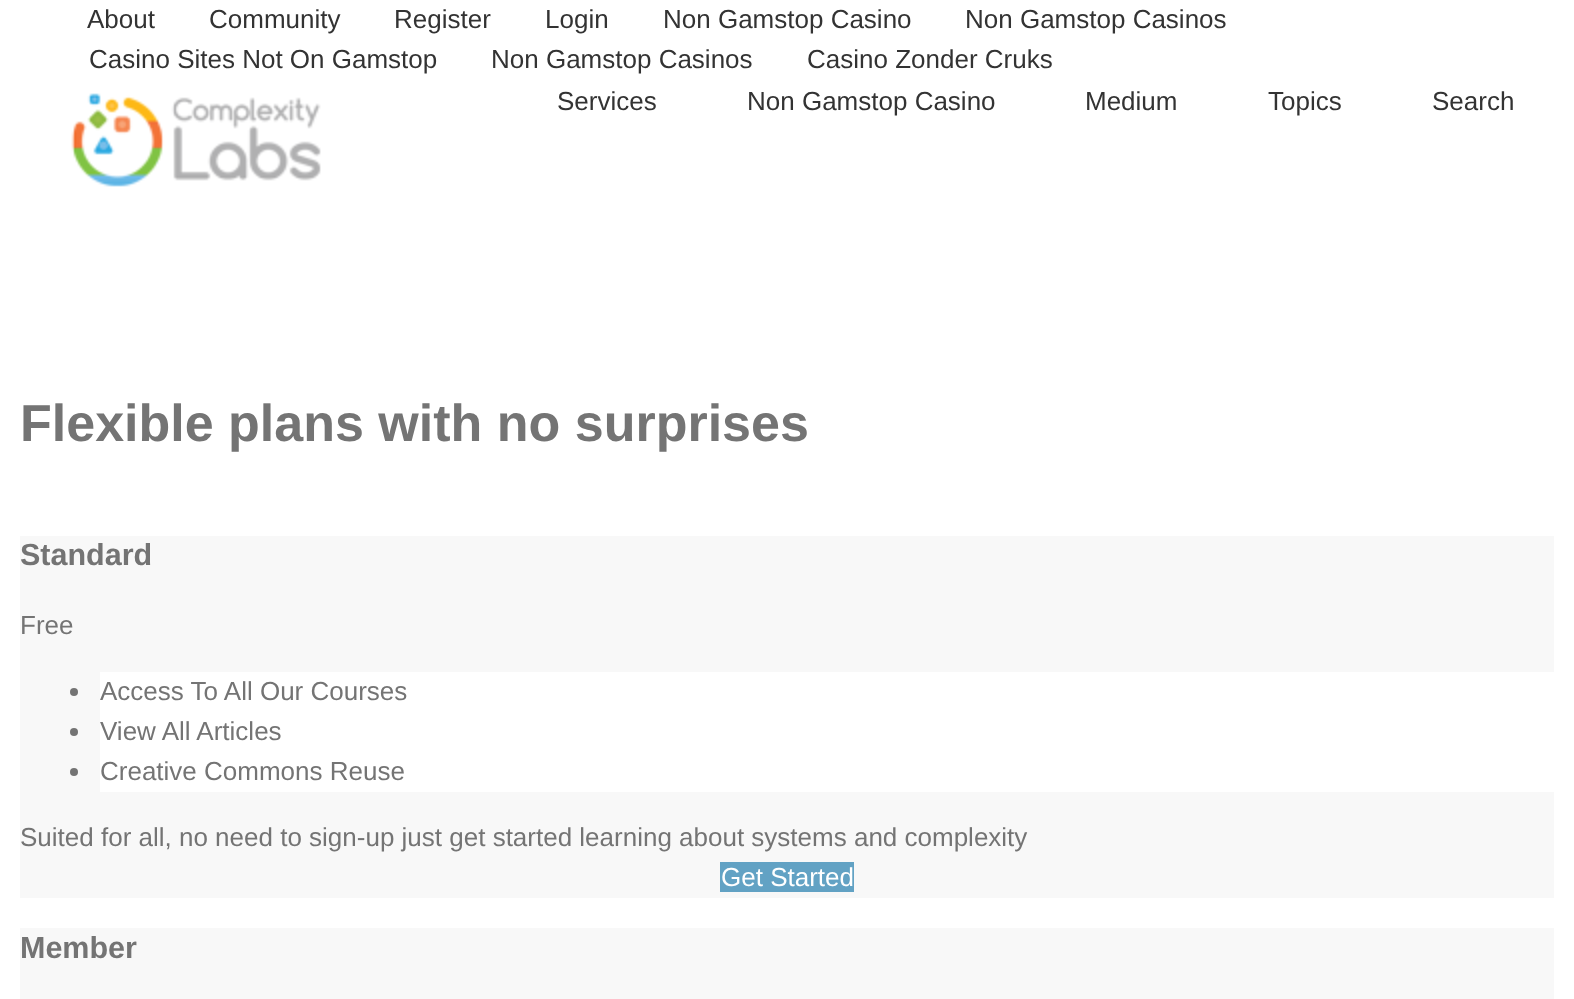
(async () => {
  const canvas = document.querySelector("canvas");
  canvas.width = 1574;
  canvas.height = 999;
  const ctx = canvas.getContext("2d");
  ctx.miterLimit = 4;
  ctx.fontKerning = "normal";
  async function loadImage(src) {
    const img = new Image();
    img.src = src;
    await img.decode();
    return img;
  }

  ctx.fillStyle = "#ffffff";
  ctx.fillRect(0, 0, 1574, 999);
  ctx.drawImage(await loadImage("img/1.png"), 71, 93, 250, 94);
  ctx.fillStyle = "#f8f8f8";
  ctx.fillRect(20, 536, 1534, 362);
  ctx.fillStyle = "#ffffff";
  ctx.fillRect(100, 672, 1454, 120);
  ctx.fillStyle = "#747474";
  ctx.beginPath();
  ctx.arc(74, 692, 4, 0, Math.PI * 2);
  ctx.fill();
  ctx.beginPath();
  ctx.arc(74, 732, 4, 0, Math.PI * 2);
  ctx.fill();
  ctx.beginPath();
  ctx.arc(74, 772, 4, 0, Math.PI * 2);
  ctx.fill();
  ctx.fillStyle = "#62a2c4";
  ctx.fillRect(720, 862, 134, 30);
  ctx.fillStyle = "#f8f8f8";
  ctx.fillRect(20, 928, 1534, 71);
  ctx.font = "26px Liberation Sans";
  ctx.fillStyle = "#333333";
  for (const [text, x, y] of [
    ["About", 87, 28],
    ["Community", 209, 28],
    ["Register", 394, 28],
    ["Login", 545, 28],
    ["Non Gamstop Casino", 663, 28],
    ["Non Gamstop Casinos", 965, 28],
    ["Casino Sites Not On Gamstop", 89, 68],
    ["Non Gamstop Casinos", 491, 68],
    ["Casino Zonder Cruks", 807, 68],
    ["Services", 557, 110],
    ["Non Gamstop Casino", 747, 110],
    ["Medium", 1085, 110],
    ["Topics", 1268, 110],
    ["Search", 1432, 110],
  ]) {
    ctx.fillText(text, x, y);
  }
  ctx.font = "bold 52px Liberation Sans";
  ctx.fillStyle = "#747474";
  ctx.fillText("Flexible plans with no surprises", 20, 441);
  ctx.font = "bold 30.5px Liberation Sans";
  ctx.fillText("Standard", 20, 565);
  ctx.font = "26px Liberation Sans";
  for (const [text, x, y] of [
    ["Free", 20, 634],
    ["Access To All Our Courses", 100, 700],
    ["View All Articles", 100, 740],
    ["Creative Commons Reuse", 100, 780],
    ["Suited for all, no need to sign-up just get started learning about systems and complexity", 20, 846],
  ]) {
    ctx.fillText(text, x, y);
  }
  ctx.fillStyle = "#ffffff";
  ctx.fillText("Get Started", 721, 886);
  ctx.font = "bold 30.5px Liberation Sans";
  ctx.fillStyle = "#747474";
  ctx.fillText("Member", 20, 958);
})();
